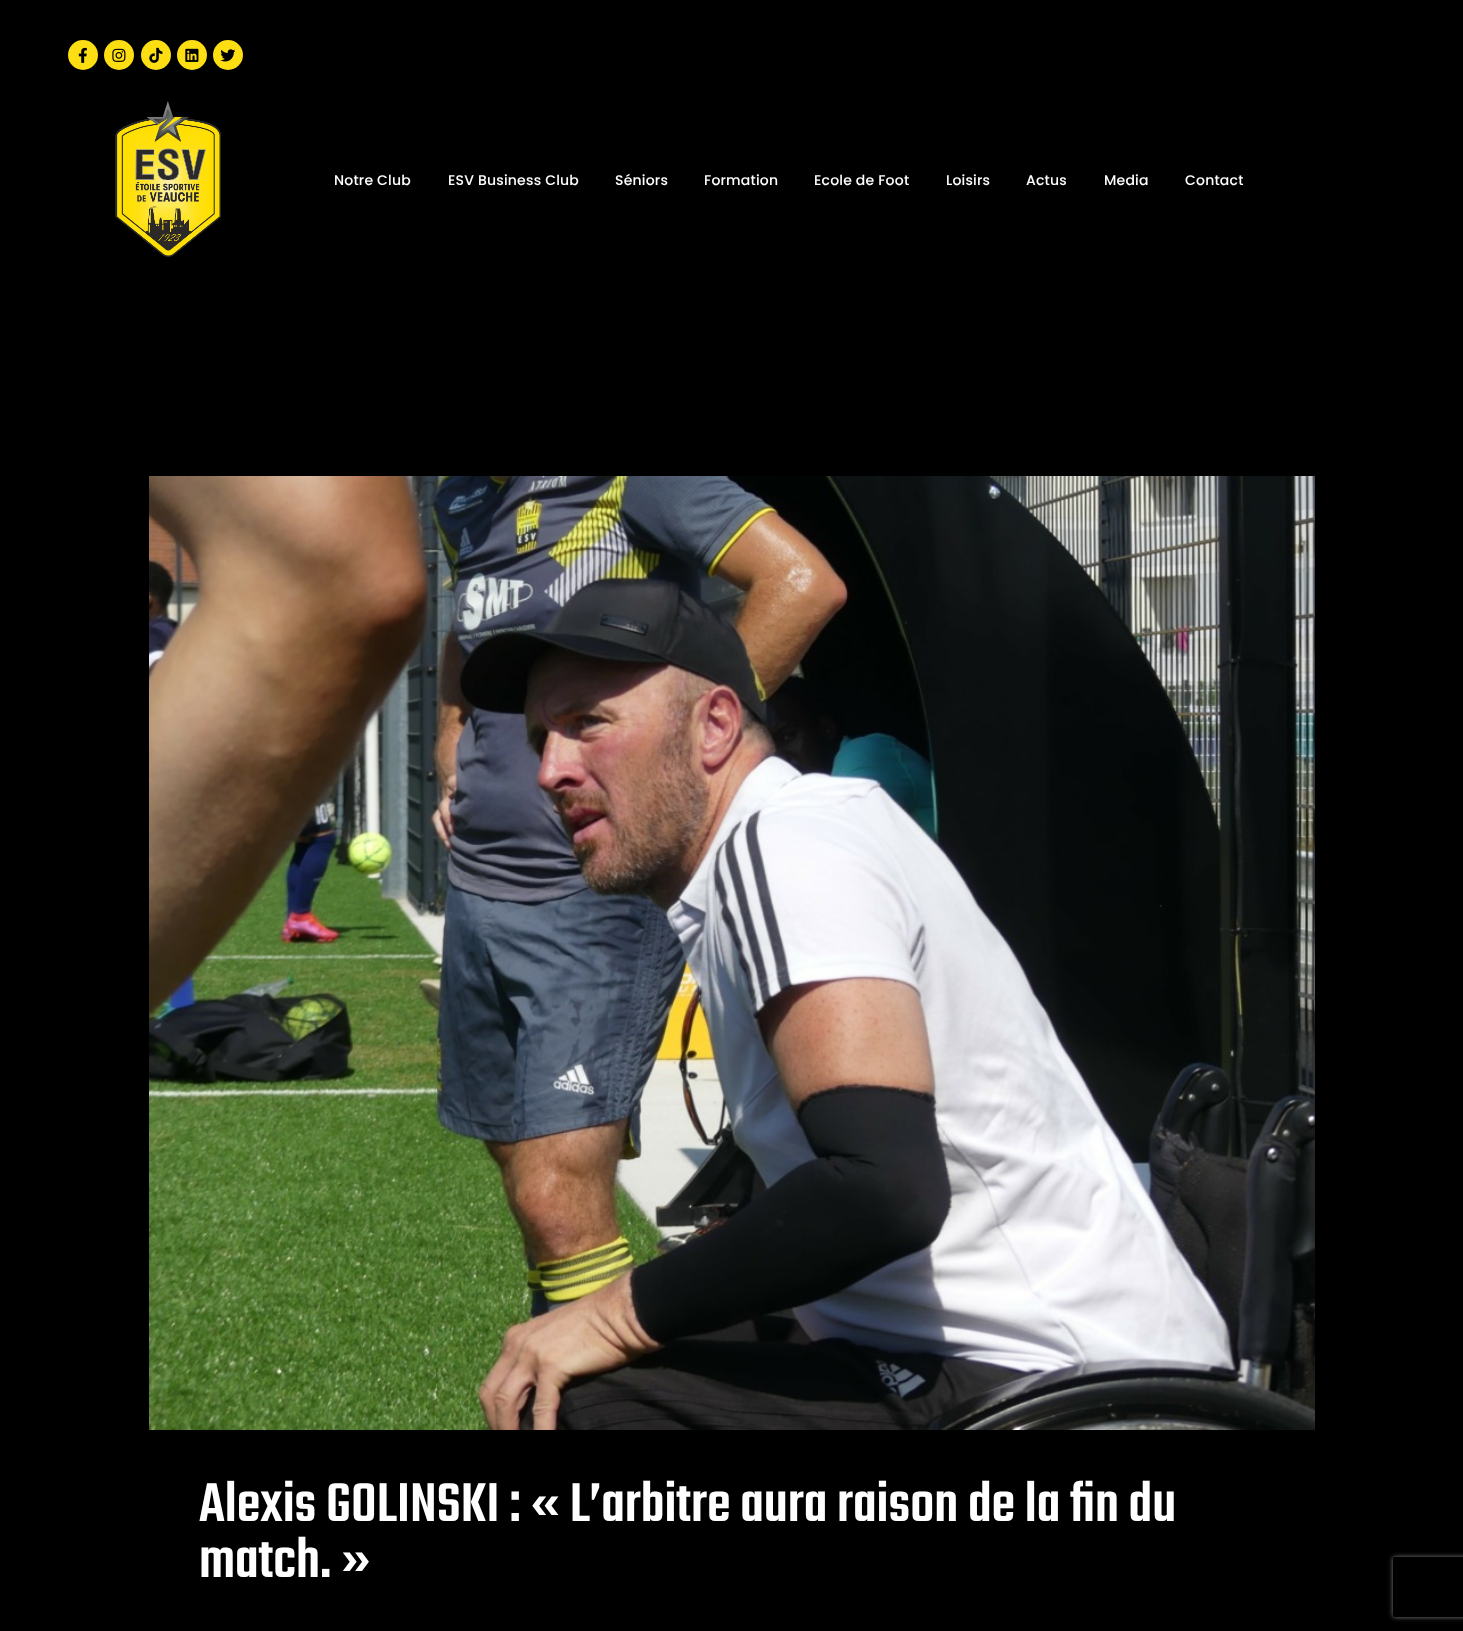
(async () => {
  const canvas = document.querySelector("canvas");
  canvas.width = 1463;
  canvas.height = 1631;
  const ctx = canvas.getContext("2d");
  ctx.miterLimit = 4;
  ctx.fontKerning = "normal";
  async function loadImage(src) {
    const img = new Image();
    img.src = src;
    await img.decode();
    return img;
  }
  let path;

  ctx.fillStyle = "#000000";
  ctx.fillRect(0, 0, 1463, 1631);
  ctx.fillStyle = "#fcde13";
  ctx.beginPath();
  ctx.arc(83, 55, 15, 0, Math.PI * 2);
  ctx.fill();
  ctx.drawImage(await loadImage("img/1.png"), 78, 47, 9, 16);
  ctx.beginPath();
  ctx.arc(119, 55, 15, 0, Math.PI * 2);
  ctx.fill();
  ctx.drawImage(await loadImage("img/2.png"), 112, 48, 14, 14);
  ctx.beginPath();
  ctx.arc(156, 55, 15, 0, Math.PI * 2);
  ctx.fill();
  ctx.drawImage(await loadImage("img/3.png"), 149, 47, 14, 16);
  ctx.beginPath();
  ctx.arc(192, 55, 15, 0, Math.PI * 2);
  ctx.fill();
  ctx.drawImage(await loadImage("img/4.png"), 185, 48, 14, 14);
  ctx.beginPath();
  ctx.arc(228, 55, 15, 0, Math.PI * 2);
  ctx.fill();
  ctx.drawImage(await loadImage("img/5.png"), 220, 49, 16, 13);
  ctx.drawImage(await loadImage("img/6.png"), 115, 101, 106, 156);
  ctx.drawImage(await loadImage("img/7.png"), 149, 476, 1166, 954);
  ctx.save();
  path = new Path2D("M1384 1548H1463V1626H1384ZM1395 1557H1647C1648 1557 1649 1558 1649 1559V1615C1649 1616 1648 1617 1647 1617H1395C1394 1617 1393 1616 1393 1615V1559C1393 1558 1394 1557 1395 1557Z");
  ctx.clip(path, "evenodd");
  ctx.fillStyle = "#808080";
  ctx.filter = "blur(2.5px)";
  ctx.beginPath();
  ctx.roundRect(1393, 1557, 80, 60, 2);
  ctx.fill();
  ctx.filter = "none";
  ctx.restore();
  ctx.letterSpacing = "0.2px";
  ctx.font = "500 14px Poppins";
  ctx.fillStyle = "#ffffff";
  for (const [text, x, y] of [
    ["Notre Club", 334, 185],
    ["ESV Business Club", 448, 185],
    ["Séniors", 615, 185],
    ["Formation", 704, 185],
    ["Ecole de Foot", 814, 185],
    ["Loisirs", 946, 185],
    ["Actus", 1026, 185],
    ["Media", 1104, 185],
    ["Contact", 1185, 185],
  ]) {
    ctx.fillText(text, x, y);
  }
  ctx.letterSpacing = "0px";
  ctx.font = "500 60px Teko";
  ctx.fillText("Alexis GOLINSKI : « L’arbitre aura raison de la fin du", 199, 1521);
  ctx.fillText("match. »", 199, 1577);
})();
